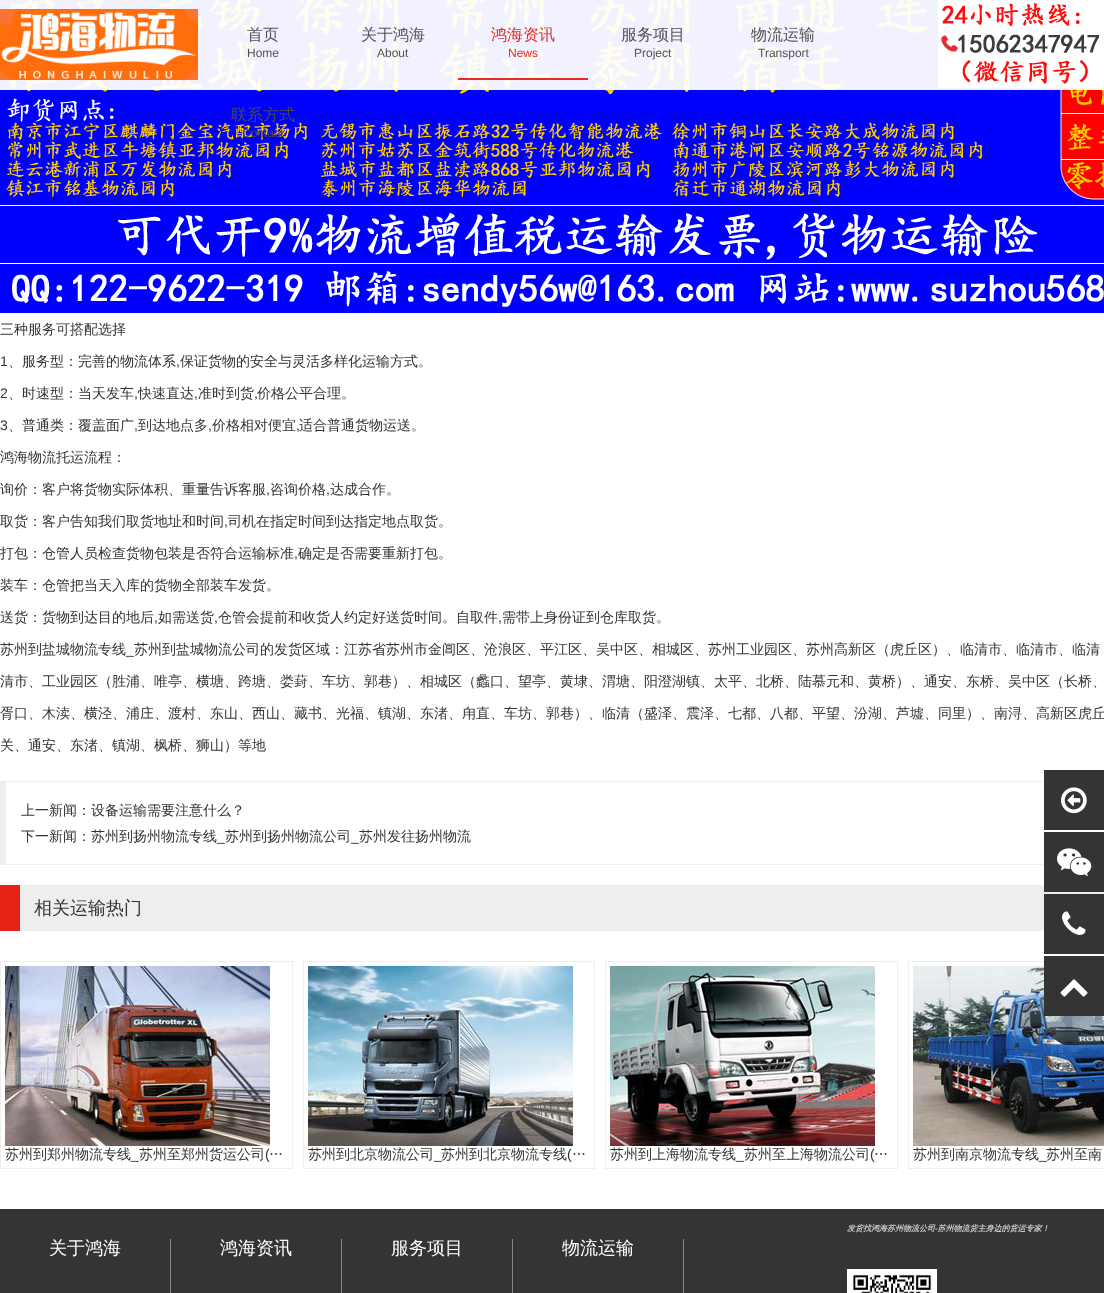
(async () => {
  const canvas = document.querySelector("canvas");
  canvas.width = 1104;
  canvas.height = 1293;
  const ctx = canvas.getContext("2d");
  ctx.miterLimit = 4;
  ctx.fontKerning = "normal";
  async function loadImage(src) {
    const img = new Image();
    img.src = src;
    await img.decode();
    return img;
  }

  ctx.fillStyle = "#ffffff";
  ctx.fillRect(0, 0, 1104, 1293);
  ctx.drawImage(await loadImage("img/3.png"), 0, 0, 1104, 313);
  ctx.fillStyle = "rgba(255, 255, 255, 0.95)";
  ctx.fillRect(0, 0, 1104, 90);
  ctx.drawImage(await loadImage("img/1.png"), 0, 9, 198, 71);
  ctx.fillStyle = "rgba(230, 34, 21, 0.95)";
  ctx.fillRect(458, 78, 130, 2);
  ctx.drawImage(await loadImage("img/2.png"), 938, 0, 166, 88);
  for (const [x, y, w, h, color] of [
    [0, 781, 1044, 1, "#eeeeee"],
    [0, 864, 1044, 1, "#eeeeee"],
    [0, 781, 6, 84, "#eeeeee"],
    [20, 885, 1084, 46, "#eeeeee"],
    [0, 885, 20, 46, "#e62215"],
  ]) {
    ctx.fillStyle = color;
    ctx.fillRect(x, y, w, h);
  }
  ctx.strokeStyle = "#eeeeee";
  ctx.strokeRect(0.5, 961.5, 292, 207);
  ctx.drawImage(await loadImage("img/4.png"), 5, 966, 265, 180);
  ctx.strokeRect(303.5, 961.5, 291, 207);
  ctx.drawImage(await loadImage("img/5.png"), 308, 966, 265, 180);
  ctx.strokeRect(605.5, 961.5, 292, 207);
  ctx.drawImage(await loadImage("img/6.png"), 610, 966, 265, 180);
  ctx.strokeRect(908.5, 961.5, 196, 207);
  ctx.drawImage(await loadImage("img/7.png"), 913, 966, 191, 180);
  ctx.fillStyle = "#343434";
  ctx.fillRect(1044, 770, 60, 60);
  ctx.drawImage(await loadImage("img/8.png"), 1061, 787, 26, 27);
  ctx.fillRect(1044, 832, 60, 60);
  ctx.drawImage(await loadImage("img/9.png"), 1057, 848, 35, 29);
  ctx.fillRect(1044, 894, 60, 60);
  ctx.drawImage(await loadImage("img/10.png"), 1062, 911, 24, 24);
  ctx.fillRect(1044, 956, 60, 60);
  ctx.drawImage(await loadImage("img/11.png"), 1060, 979, 28, 18);
  ctx.fillRect(0, 1209, 1104, 84);
  ctx.drawImage(await loadImage("img/12.png"), 847, 1269, 90, 24);
  for (const [x, y, w, h, color] of [
    [170, 1239, 1, 54, "#858585"],
    [341, 1239, 1, 54, "#858585"],
    [512, 1239, 1, 54, "#858585"],
    [683, 1239, 1, 54, "#858585"],
  ]) {
    ctx.fillStyle = color;
    ctx.fillRect(x, y, w, h);
  }
  ctx.font = "500 16px WenQuanYi Zen Hei";
  ctx.fillStyle = "#545455";
  ctx.fillText("首页", 247, 40);
  ctx.font = "12px Liberation Sans";
  ctx.fillText("Home", 247, 57);
  ctx.font = "500 16px WenQuanYi Zen Hei";
  ctx.fillText("关于鸿海", 361, 40);
  ctx.font = "12px Liberation Sans";
  ctx.fillText("About", 377, 57);
  ctx.font = "500 16px WenQuanYi Zen Hei";
  ctx.fillStyle = "#e72c21";
  ctx.fillText("鸿海资讯", 491, 40);
  ctx.font = "12px Liberation Sans";
  ctx.fillText("News", 508, 57);
  ctx.font = "500 16px WenQuanYi Zen Hei";
  ctx.fillStyle = "#545455";
  ctx.fillText("服务项目", 621, 40);
  ctx.font = "12px Liberation Sans";
  ctx.fillText("Project", 634, 57);
  ctx.font = "500 16px WenQuanYi Zen Hei";
  ctx.fillText("物流运输", 751, 40);
  ctx.font = "12px Liberation Sans";
  ctx.fillText("Transport", 758, 57);
  ctx.font = "500 16px WenQuanYi Zen Hei";
  ctx.fillStyle = "#484855";
  ctx.fillText("联系方式", 231, 120);
  ctx.font = "12px Liberation Sans";
  ctx.fillText("Contact", 242, 137);
  ctx.font = "500 14px WenQuanYi Zen Hei";
  ctx.fillStyle = "#333333";
  ctx.fillText("三种服务可搭配选择", 0, 334);
  ctx.font = "14px Liberation Sans";
  ctx.fillText("1", 0, 366);
  ctx.font = "500 14px WenQuanYi Zen Hei";
  ctx.fillText("、服务型：完善的物流体系", 8, 366);
  ctx.font = "14px Liberation Sans";
  ctx.fillText(",", 176, 366);
  ctx.font = "500 14px WenQuanYi Zen Hei";
  ctx.fillText("保证货物的安全与灵活多样化运输方式。", 180, 366);
  ctx.font = "14px Liberation Sans";
  ctx.fillText("2", 0, 398);
  ctx.font = "500 14px WenQuanYi Zen Hei";
  ctx.fillText("、时速型：当天发车", 8, 398);
  ctx.font = "14px Liberation Sans";
  ctx.fillText(",", 134, 398);
  ctx.font = "500 14px WenQuanYi Zen Hei";
  ctx.fillText("快速直达", 138, 398);
  ctx.font = "14px Liberation Sans";
  ctx.fillText(",", 194, 398);
  ctx.font = "500 14px WenQuanYi Zen Hei";
  ctx.fillText("准时到货", 198, 398);
  ctx.font = "14px Liberation Sans";
  ctx.fillText(",", 254, 398);
  ctx.font = "500 14px WenQuanYi Zen Hei";
  ctx.fillText("价格公平合理。", 257, 398);
  ctx.font = "14px Liberation Sans";
  ctx.fillText("3", 0, 430);
  ctx.font = "500 14px WenQuanYi Zen Hei";
  ctx.fillText("、普通类：覆盖面广", 8, 430);
  ctx.font = "14px Liberation Sans";
  ctx.fillText(",", 134, 430);
  ctx.font = "500 14px WenQuanYi Zen Hei";
  ctx.fillText("到达地点多", 138, 430);
  ctx.font = "14px Liberation Sans";
  ctx.fillText(",", 208, 430);
  ctx.font = "500 14px WenQuanYi Zen Hei";
  ctx.fillText("价格相对便宜", 212, 430);
  ctx.font = "14px Liberation Sans";
  ctx.fillText(",", 296, 430);
  ctx.font = "500 14px WenQuanYi Zen Hei";
  for (const [text, x, y] of [
    ["适合普通货物运送。", 299, 430],
    ["鸿海物流托运流程：", 0, 462],
    ["询价：客户将货物实际体积、重量告诉客服", 0, 494],
  ]) {
    ctx.fillText(text, x, y);
  }
  ctx.font = "14px Liberation Sans";
  ctx.fillText(",", 266, 494);
  ctx.font = "500 14px WenQuanYi Zen Hei";
  ctx.fillText("咨询价格", 270, 494);
  ctx.font = "14px Liberation Sans";
  ctx.fillText(",", 326, 494);
  ctx.font = "500 14px WenQuanYi Zen Hei";
  ctx.fillText("达成合作。", 330, 494);
  ctx.fillText("取货：客户告知我们取货地址和时间", 0, 526);
  ctx.font = "14px Liberation Sans";
  ctx.fillText(",", 224, 526);
  ctx.font = "500 14px WenQuanYi Zen Hei";
  ctx.fillText("司机在指定时间到达指定地点取货。", 228, 526);
  ctx.fillText("打包：仓管人员检查货物包装是否符合运输标准", 0, 558);
  ctx.font = "14px Liberation Sans";
  ctx.fillText(",", 294, 558);
  ctx.font = "500 14px WenQuanYi Zen Hei";
  for (const [text, x, y] of [
    ["确定是否需要重新打包。", 298, 558],
    ["装车：仓管把当天入库的货物全部装车发货。", 0, 590],
    ["送货：货物到达目的地后", 0, 622],
  ]) {
    ctx.fillText(text, x, y);
  }
  ctx.font = "14px Liberation Sans";
  ctx.fillText(",", 154, 622);
  ctx.font = "500 14px WenQuanYi Zen Hei";
  ctx.fillText("如需送货", 158, 622);
  ctx.font = "14px Liberation Sans";
  ctx.fillText(",", 214, 622);
  ctx.font = "500 14px WenQuanYi Zen Hei";
  ctx.fillText("仓管会提前和收货人约定好送货时间。自取件", 218, 622);
  ctx.font = "14px Liberation Sans";
  ctx.fillText(",", 498, 622);
  ctx.font = "500 14px WenQuanYi Zen Hei";
  ctx.fillText("需带上身份证到仓库取货。", 502, 622);
  ctx.fillText("苏州到盐城物流专线", 0, 654);
  ctx.font = "14px Liberation Sans";
  ctx.fillText("_", 126, 654);
  ctx.font = "500 14px WenQuanYi Zen Hei";
  for (const [text, x, y] of [
    ["苏州到盐城物流公司的发货区域：江苏省苏州市金阊区、沧浪区、平江区、吴中区、相城区、苏州工业园区、苏州高新区（虎丘区）、临清市、临清市、临清", 134, 654],
    ["清市、工业园区（胜浦、唯亭、横塘、跨塘、娄葑、车坊、郭巷）、相城区（蠡口、望亭、黄埭、渭塘、阳澄湖镇、太平、北桥、陆慕元和、黄桥）、通安、东桥、吴中区（长桥、", 0, 686],
    ["胥口、木渎、横泾、浦庄、渡村、东山、西山、藏书、光福、镇湖、东渚、甪直、车坊、郭巷）、临清（盛泽、震泽、七都、八都、平望、汾湖、芦墟、同里）、南浔、高新区虎丘", 0, 718],
    ["关、通安、东渚、镇湖、枫桥、狮山）等地", 0, 750],
    ["上一新闻：设备运输需要注意什么？", 21, 815],
    ["下一新闻：苏州到扬州物流专线", 21, 841],
  ]) {
    ctx.fillText(text, x, y);
  }
  ctx.font = "14px Liberation Sans";
  ctx.fillText("_", 217, 841);
  ctx.font = "500 14px WenQuanYi Zen Hei";
  ctx.fillText("苏州到扬州物流公司", 225, 841);
  ctx.font = "14px Liberation Sans";
  ctx.fillText("_", 351, 841);
  ctx.font = "500 14px WenQuanYi Zen Hei";
  ctx.fillText("苏州发往扬州物流", 359, 841);
  ctx.font = "500 18px WenQuanYi Zen Hei";
  ctx.fillText("相关运输热门", 34, 914);
  ctx.font = "500 14px WenQuanYi Zen Hei";
  ctx.fillText("苏州到郑州物流专线", 5, 1159);
  ctx.fillText("苏州至郑州货运公司", 139, 1159);
  ctx.font = "14px Liberation Sans";
  ctx.fillText("(", 265, 1159);
  ctx.font = "500 14px WenQuanYi Zen Hei";
  ctx.fillText("…", 269, 1159);
  ctx.font = "14px Liberation Sans";
  ctx.fillText("_", 131, 1159);
  ctx.font = "500 14px WenQuanYi Zen Hei";
  ctx.fillText("苏州到北京物流公司", 308, 1159);
  ctx.font = "14px Liberation Sans";
  ctx.fillText("(", 567, 1159);
  ctx.font = "500 14px WenQuanYi Zen Hei";
  ctx.fillText("…", 572, 1159);
  ctx.font = "14px Liberation Sans";
  ctx.fillText("_", 434, 1159);
  ctx.font = "500 14px WenQuanYi Zen Hei";
  for (const [text, x, y] of [
    ["苏州到北京物流专线", 441, 1159],
    ["苏州到上海物流专线", 610, 1159],
    ["苏州至上海物流公司", 744, 1159],
  ]) {
    ctx.fillText(text, x, y);
  }
  ctx.font = "14px Liberation Sans";
  ctx.fillText("(", 870, 1159);
  ctx.font = "500 14px WenQuanYi Zen Hei";
  ctx.fillText("…", 874, 1159);
  ctx.font = "14px Liberation Sans";
  ctx.fillText("_", 736, 1159);
  ctx.font = "500 14px WenQuanYi Zen Hei";
  ctx.fillText("苏州到南京物流专线", 913, 1159);
  ctx.font = "14px Liberation Sans";
  ctx.fillText("_", 1039, 1159);
  ctx.font = "500 14px WenQuanYi Zen Hei";
  ctx.fillText("苏州至南", 1046, 1159);
  ctx.font = "italic bold 8px WenQuanYi Zen Hei";
  ctx.fillStyle = "#cccccc";
  ctx.fillText("发货找鸿海苏州物流公司 苏州物流货主身边的货运专家！", 847, 1231);
  ctx.font = "italic bold 8px Liberation Sans";
  ctx.fillText("-", 935, 1231);
  ctx.font = "500 18px WenQuanYi Zen Hei";
  ctx.fillStyle = "#ffffff";
  for (const [text, x, y] of [
    ["关于鸿海", 49, 1254],
    ["鸿海资讯", 220, 1254],
    ["服务项目", 391, 1254],
    ["物流运输", 562, 1254],
  ]) {
    ctx.fillText(text, x, y);
  }
})();
